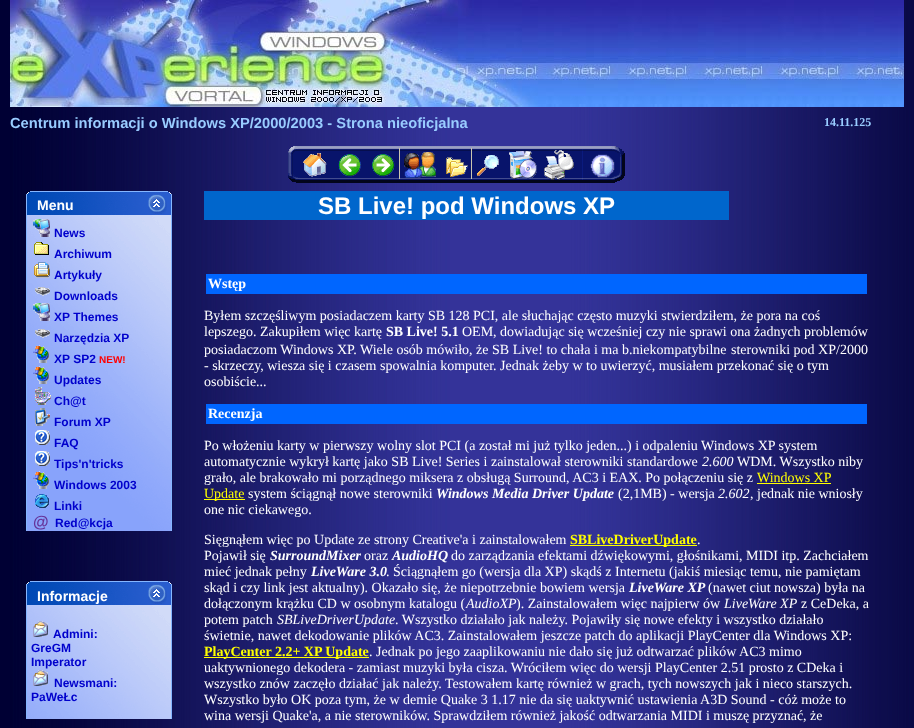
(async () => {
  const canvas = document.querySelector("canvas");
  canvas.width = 914;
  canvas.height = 728;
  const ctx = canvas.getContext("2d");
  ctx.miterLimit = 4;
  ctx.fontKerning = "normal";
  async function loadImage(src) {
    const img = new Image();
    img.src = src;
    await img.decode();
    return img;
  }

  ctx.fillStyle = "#ffffff";
  ctx.fillRect(0, 0, 914, 728);
  ctx.drawImage(await loadImage("img/1.png"), 0, 0, 914, 728);
  ctx.drawImage(await loadImage("img/2.png"), 10, 0, 894, 107);
  ctx.drawImage(await loadImage("img/3.png"), 288, 146, 337, 37);
  ctx.drawImage(await loadImage("img/4.png"), 26, 191, 146, 340);
  ctx.drawImage(await loadImage("img/5.png"), 33, 219, 17, 18);
  ctx.drawImage(await loadImage("img/6.png"), 34, 242, 15, 13);
  ctx.drawImage(await loadImage("img/7.png"), 34, 262, 16, 16);
  ctx.drawImage(await loadImage("img/8.png"), 35, 287, 15, 9);
  ctx.drawImage(await loadImage("img/9.png"), 33, 303, 17, 18);
  ctx.drawImage(await loadImage("img/10.png"), 35, 329, 15, 9);
  ctx.drawImage(await loadImage("img/11.png"), 33, 345, 16, 18);
  ctx.drawImage(await loadImage("img/12.png"), 33, 366, 16, 18);
  ctx.drawImage(await loadImage("img/13.png"), 35, 387, 16, 18);
  ctx.drawImage(await loadImage("img/14.png"), 35, 408, 15, 18);
  ctx.drawImage(await loadImage("img/15.png"), 35, 430, 15, 15);
  ctx.drawImage(await loadImage("img/15.png"), 35, 451, 15, 15);
  ctx.drawImage(await loadImage("img/16.png"), 33, 471, 16, 18);
  ctx.drawImage(await loadImage("img/17.png"), 35, 494, 14, 14);
  ctx.drawImage(await loadImage("img/18.png"), 26, 581, 146, 138);
  ctx.drawImage(await loadImage("img/19.png"), 33, 621, 15, 16);
  ctx.drawImage(await loadImage("img/20.png"), 33, 670, 15, 16);
  for (const [x, y, w, h, color] of [
    [204, 191, 525, 29, "#0066cc"],
    [206, 274, 661, 20, "#0066ff"],
    [206, 404, 661, 20, "#0066ff"],
    [757, 483, 74, 1, "#ffff00"],
    [204, 499, 41, 1, "#ffff00"],
    [570, 545, 127, 1, "#ffff00"],
    [204, 657, 165, 1, "#ffff00"],
  ]) {
    ctx.fillStyle = color;
    ctx.fillRect(x, y, w, h);
  }
  ctx.font = "bold 14.7px Liberation Sans";
  ctx.fillStyle = "#99ccff";
  ctx.fillText("Centrum informacji o Windows XP/2000/2003 - Strona nieoficjalna", 10, 128);
  ctx.font = "bold 12px Liberation Serif";
  ctx.fillText("14.11.125", 824, 126);
  ctx.font = "bold 14px Liberation Sans";
  ctx.fillStyle = "#ffffff";
  ctx.fillText("Menu", 37, 210);
  ctx.font = "bold 12px Liberation Sans";
  ctx.fillStyle = "#0000cc";
  for (const [text, x, y] of [
    ["News", 54, 237],
    ["Archiwum", 54, 258],
    ["Artykuły", 54, 279],
    ["Downloads", 54, 300],
    ["XP Themes", 54, 321],
    ["Narzędzia XP", 54, 342],
    ["XP SP2", 54, 363],
  ]) {
    ctx.fillText(text, x, y);
  }
  ctx.font = "bold 10px Liberation Sans";
  ctx.fillStyle = "#ff0000";
  ctx.fillText("NEW!", 99, 363);
  ctx.font = "bold 12px Liberation Sans";
  ctx.fillStyle = "#0000cc";
  for (const [text, x, y] of [
    ["Updates", 54, 384],
    ["Ch@t", 54, 405],
    ["Forum XP", 54, 426],
    ["FAQ", 54, 447],
    ["Tips'n'tricks", 54, 468],
    ["Windows 2003", 54, 489],
    ["Linki", 54, 510],
  ]) {
    ctx.fillText(text, x, y);
  }
  ctx.font = "bold 16px Liberation Sans";
  ctx.fillStyle = "#663399";
  ctx.fillText("@", 33, 527);
  ctx.font = "bold 12px Liberation Sans";
  ctx.fillStyle = "#0000cc";
  ctx.fillText("Red@kcja", 55, 527);
  ctx.font = "bold 14px Liberation Sans";
  ctx.fillStyle = "#ffffff";
  ctx.fillText("Informacje", 37, 601);
  ctx.font = "bold 12px Liberation Sans";
  ctx.fillStyle = "#0000cc";
  for (const [text, x, y] of [
    ["Admini:", 53, 638],
    ["GreGM", 31, 652],
    ["Imperator", 31, 666],
    ["Newsmani:", 54, 687],
    ["PaWeŁc", 31, 701],
  ]) {
    ctx.fillText(text, x, y);
  }
  ctx.font = "bold 24px Liberation Sans";
  ctx.fillStyle = "#ffffff";
  ctx.fillText("SB Live! pod Windows XP", 318, 214);
  ctx.font = "bold 14px Liberation Serif";
  ctx.fillText("Wstęp", 208, 288);
  ctx.font = "14px Liberation Serif";
  ctx.fillText("Byłem szczęśliwym posiadaczem karty SB 128 PCI, ale słuchając często muzyki stwierdziłem, że pora na coś", 204, 320);
  ctx.fillText("lepszego. Zakupiłem więc kartę", 204, 336);
  ctx.font = "bold 14px Liberation Serif";
  ctx.fillText("SB Live! 5.1", 386, 336);
  ctx.font = "14px Liberation Serif";
  for (const [text, x, y] of [
    ["OEM, dowiadując się wcześniej czy nie sprawi ona żadnych problemów", 462, 336],
    ["posiadaczom Windows XP. Wiele osób mówiło, że SB Live! to chała i ma b.niekompatybilne", 204, 354],
    ["sterowniki pod XP/2000", 731, 354],
    ["- skrzeczy, wiesza się i czasem spowalnia komputer. Jednak żeby w to uwierzyć, musiałem przekonać się o tym", 204, 370],
    ["osobiście...", 204, 386],
  ]) {
    ctx.fillText(text, x, y);
  }
  ctx.font = "bold 14px Liberation Serif";
  ctx.fillText("Recenzja", 208, 418);
  ctx.font = "14px Liberation Serif";
  ctx.fillText("Po włożeniu karty w pierwszy wolny slot PCI (a został mi już tylko jeden...) i odpaleniu Windows XP system", 204, 450);
  ctx.fillText("automatycznie wykrył kartę jako SB Live! Series i zainstalował sterowniki standardowe", 204, 466);
  ctx.font = "italic 14px Liberation Serif";
  ctx.fillText("2.600", 702, 466);
  ctx.font = "14px Liberation Serif";
  ctx.fillText("WDM. Wszystko niby", 737, 466);
  ctx.fillText("grało, ale brakowało mi porządnego miksera z obsługą Surround, AC3 i EAX. Po połączeniu się z", 204, 482);
  ctx.fillStyle = "#ffff00";
  ctx.fillText("Windows XP", 757, 482);
  ctx.fillText("Update", 204, 498);
  ctx.fillStyle = "#ffffff";
  ctx.fillText("system ściągnął nowe sterowniki", 248, 498);
  ctx.font = "italic bold 14px Liberation Serif";
  ctx.fillText("Windows Media Driver Update", 436, 498);
  ctx.font = "14px Liberation Serif";
  ctx.fillText("(2,1MB) - wersja", 618, 498);
  ctx.font = "italic 14px Liberation Serif";
  ctx.fillText("2.602", 718, 498);
  ctx.font = "14px Liberation Serif";
  for (const [text, x, y] of [
    [", jednak nie wniosły", 750, 498],
    ["one nic ciekawego.", 204, 514],
    ["Sięgnąłem więc po Update ze strony Creative'a i zainstalowałem", 204, 544],
  ]) {
    ctx.fillText(text, x, y);
  }
  ctx.font = "bold 14px Liberation Serif";
  ctx.fillStyle = "#ffff00";
  ctx.fillText("SBLiveDriverUpdate", 570, 544);
  ctx.font = "14px Liberation Serif";
  ctx.fillStyle = "#ffffff";
  ctx.fillText(".", 697, 544);
  ctx.fillText("Pojawił się", 204, 560);
  ctx.font = "italic bold 14px Liberation Serif";
  ctx.fillText("SurroundMixer", 270, 560);
  ctx.font = "14px Liberation Serif";
  ctx.fillText("oraz", 364, 560);
  ctx.font = "italic bold 14px Liberation Serif";
  ctx.fillText("AudioHQ", 392, 560);
  ctx.font = "14px Liberation Serif";
  ctx.fillText("do zarządzania efektami dźwiękowymi, głośnikami, MIDI itp. Zachciałem", 451, 560);
  ctx.fillText("mieć jednak pełny", 204, 576);
  ctx.font = "italic bold 14px Liberation Serif";
  ctx.fillText("LiveWare 3.0", 311, 576);
  ctx.font = "14px Liberation Serif";
  ctx.fillText(". Ściągnąłem go (wersja dla XP) skądś z Internetu (jakiś miesiąc temu, nie pamiętam", 386, 576);
  ctx.fillText("skąd i czy link jest aktualny). Okazało się, że niepotrzebnie bowiem wersja", 204, 592);
  ctx.font = "italic bold 14px Liberation Serif";
  ctx.fillText("LiveWare XP", 629, 592);
  ctx.font = "14px Liberation Serif";
  ctx.fillText("(nawet ciut nowsza) była na", 708, 592);
  ctx.fillText("dołączonym krążku CD w osobnym katalogu (", 204, 608);
  ctx.font = "italic 14px Liberation Serif";
  ctx.fillText("AudioXP", 466, 608);
  ctx.font = "14px Liberation Serif";
  ctx.fillText("). Zainstalowałem więc najpierw ów", 516, 608);
  ctx.font = "italic 14px Liberation Serif";
  ctx.fillText("LiveWare XP", 724, 608);
  ctx.font = "14px Liberation Serif";
  ctx.fillText("z CeDeka, a", 801, 608);
  ctx.fillText("potem patch", 204, 624);
  ctx.font = "italic 14px Liberation Serif";
  ctx.fillText("SBLiveDriverUpdate", 277, 624);
  ctx.font = "14px Liberation Serif";
  ctx.fillText(". Wszystko działało jak należy. Pojawiły się nowe efekty i wszystko działało", 395, 624);
  ctx.fillText("świetnie, nawet dekodowanie plików AC3. Zainstalowałem jeszcze patch do aplikacji PlayCenter dla Windows XP:", 204, 640);
  ctx.font = "bold 14px Liberation Serif";
  ctx.fillStyle = "#ffff00";
  ctx.fillText("PlayCenter 2.2+ XP Update", 204, 656);
  ctx.font = "14px Liberation Serif";
  ctx.fillStyle = "#ffffff";
  for (const [text, x, y] of [
    [". Jednak po jego zaaplikowaniu nie dało się już odtwarzać plików AC3 mimo", 369, 656],
    ["uaktywnionego dekodera - zamiast muzyki była cisza. Wróciłem więc do wersji PlayCenter 2.51 prosto z CDeka i", 204, 672],
    ["wszystko znów zaczęło działać jak należy. Testowałem kartę również w grach, tych nowszych jak i nieco starszych.", 204, 688],
    ["Wszystko było OK poza tym, że w demie Quake 3 1.17 nie da się uaktywnić ustawienia A3D Sound - cóż może to", 204, 704],
    ["wina wersji Quake'a, a nie sterowników. Sprawdziłem również jakość odtwarzania MIDI i muszę przyznać, że", 204, 720],
  ]) {
    ctx.fillText(text, x, y);
  }
})();
